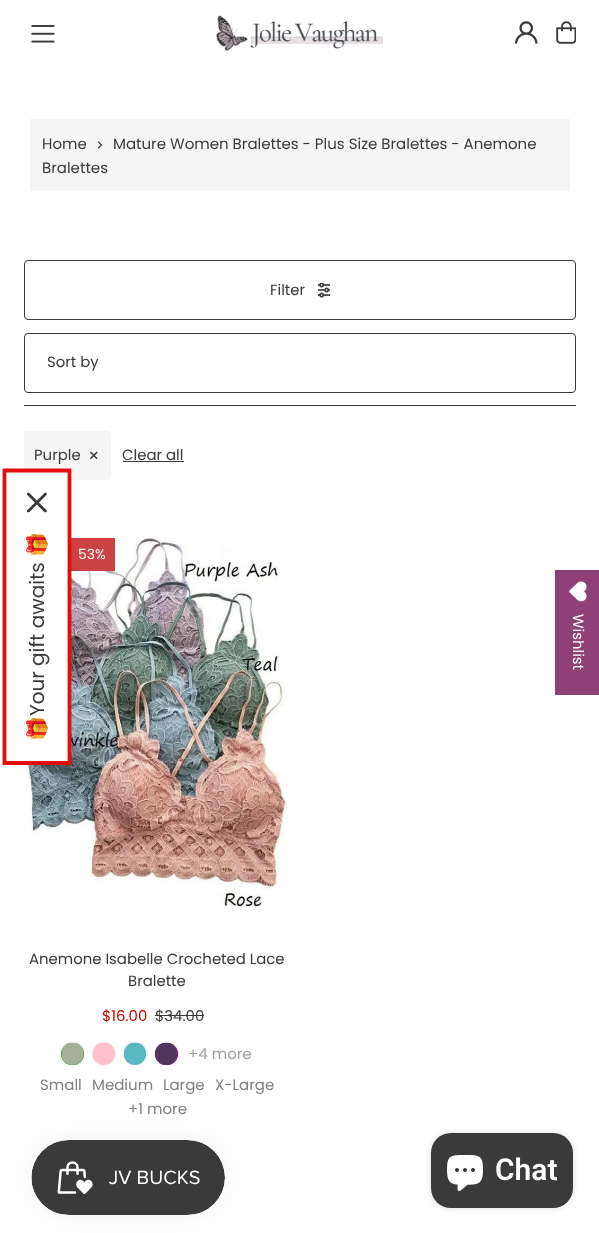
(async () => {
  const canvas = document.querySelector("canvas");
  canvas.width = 599;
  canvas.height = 1233;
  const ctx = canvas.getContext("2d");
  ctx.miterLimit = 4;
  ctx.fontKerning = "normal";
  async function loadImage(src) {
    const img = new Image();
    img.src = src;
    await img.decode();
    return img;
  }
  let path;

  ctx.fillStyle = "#ffffff";
  ctx.fillRect(0, 0, 599, 1233);
  ctx.drawImage(await loadImage("img/1.png"), 31, 25, 24, 18);
  ctx.drawImage(await loadImage("img/2.png"), 216, 15, 167, 36);
  ctx.drawImage(await loadImage("img/3.png"), 515, 21, 23, 23);
  ctx.drawImage(await loadImage("img/4.png"), 556, 21, 20, 23);
  ctx.fillStyle = "#f5f5f5";
  ctx.fillRect(30, 119, 540, 72);
  ctx.drawImage(await loadImage("img/5.png"), 98, 141, 5, 8);
  ctx.fillStyle = "#3a3a3a";
  ctx.fillRect(24, 405, 552, 1);
  ctx.beginPath();
  ctx.roundRect(24.5, 260.5, 551, 59, 3.5);
  ctx.strokeStyle = "#3a3a3a";
  ctx.stroke();
  ctx.drawImage(await loadImage("img/6.png"), 318, 283, 12, 15);
  ctx.beginPath();
  ctx.roundRect(24.5, 333.5, 551, 59, 3.5);
  ctx.stroke();
  ctx.fillStyle = "#f5f5f5";
  ctx.beginPath();
  ctx.roundRect(24, 431, 87, 49, 4);
  ctx.fill();
  ctx.fillStyle = "#3a3a3a";
  ctx.fillRect(123, 461, 61, 1);
  ctx.drawImage(await loadImage("img/7.png"), 24, 536, 263, 371);
  ctx.fillStyle = "#cc4141";
  ctx.fillRect(71, 538, 44, 33);
  ctx.fillStyle = "#3a3a3a";
  ctx.fillRect(155, 1015, 49, 1);
  ctx.beginPath();
  ctx.arc(72.5, 1053.5, 12, 0, Math.PI * 2);
  ctx.strokeStyle = "#eeeeee";
  ctx.stroke();
  ctx.fillStyle = "#008000";
  ctx.beginPath();
  ctx.roundRect(61, 1043, 23, 22, 11);
  ctx.fill();
  ctx.drawImage(await loadImage("img/8.png"), 61, 1042, 23, 23);
  ctx.beginPath();
  ctx.arc(103.5, 1053.5, 12, 0, Math.PI * 2);
  ctx.stroke();
  ctx.drawImage(await loadImage("img/9.png"), 92, 1042, 23, 23);
  ctx.beginPath();
  ctx.arc(135.5, 1053.5, 12, 0, Math.PI * 2);
  ctx.stroke();
  ctx.drawImage(await loadImage("img/10.png"), 123, 1042, 24, 23);
  ctx.beginPath();
  ctx.arc(166.5, 1053.5, 12, 0, Math.PI * 2);
  ctx.stroke();
  ctx.fillStyle = "#800080";
  ctx.beginPath();
  ctx.roundRect(155, 1043, 23, 22, 11);
  ctx.fill();
  ctx.drawImage(await loadImage("img/11.png"), 155, 1042, 23, 23);
  ctx.fillStyle = "#ffffff";
  ctx.fillRect(24, 469, 47, 296);
  path = new Path2D("M4.5 763V470.5H69.5V763Z");
  ctx.strokeStyle = "#e30d0d";
  ctx.lineWidth = 3.8;
  ctx.stroke(path);
  ctx.drawImage(await loadImage("img/12.png"), 27, 492, 20, 21);
  ctx.fillStyle = "#8f4079";
  ctx.fillRect(555, 570, 44, 125);
  ctx.drawImage(await loadImage("img/13.png"), 569, 581, 18, 21);
  ctx.fillStyle = "rgba(0, 0, 0, 0.05)";
  ctx.filter = "blur(15.5px)";
  ctx.beginPath();
  ctx.roundRect(31, 1140, 194, 75, 37.5);
  ctx.fill();
  ctx.filter = "none";
  ctx.drawImage(await loadImage("img/14.png"), 31, 1140, 194, 75);
  ctx.fillStyle = "rgba(0, 0, 0, 0.15)";
  ctx.filter = "blur(3px)";
  ctx.beginPath();
  ctx.roundRect(431, 1133, 142, 75, 20);
  ctx.fill();
  ctx.filter = "none";
  ctx.fillStyle = "#3a3a3a";
  ctx.beginPath();
  ctx.roundRect(431, 1133, 142, 75, 20);
  ctx.fill();
  ctx.drawImage(await loadImage("img/15.png"), 447, 1155, 36, 36);
  ctx.font = "15px Poppins";
  for (const [text, x, y] of [
    ["Home", 42, 149],
    ["Mature Women Bralettes - Plus Size Bralettes - Anemone", 113, 149],
    ["Bralettes", 42, 173],
  ]) {
    ctx.fillText(text, x, y);
  }
  ctx.font = "14.9px Poppins";
  for (const [text, x, y] of [
    ["Filter", 270, 295],
    ["Sort by", 47, 367],
    ["Purple", 34, 460],
  ]) {
    ctx.fillText(text, x, y);
  }
  ctx.font = "18px Poppins";
  ctx.fillText("×", 88, 462);
  ctx.font = "14.9px Poppins";
  ctx.fillText("Clear all", 122, 460);
  ctx.font = "14px Poppins";
  ctx.fillStyle = "#ffffff";
  ctx.fillText("53%", 78, 559);
  ctx.font = "14.9px Poppins";
  ctx.fillStyle = "#3a3a3a";
  ctx.fillText("Anemone Isabelle Crocheted Lace", 29, 964);
  ctx.fillText("Bralette", 128, 986);
  ctx.fillStyle = "#c50000";
  ctx.fillText("$16.00", 102, 1021);
  ctx.fillStyle = "#3a3a3a";
  ctx.fillText("$34.00", 155, 1021);
  ctx.font = "15px Poppins";
  ctx.fillStyle = "#a0a0a0";
  ctx.fillText("+4 more", 188, 1059);
  ctx.fillStyle = "#7f7f7f";
  for (const [text, x, y] of [
    ["Small", 40, 1090],
    ["Medium", 92, 1090],
    ["Large", 163, 1090],
    ["X-Large", 215, 1090],
    ["+1 more", 128, 1114],
  ]) {
    ctx.fillText(text, x, y);
  }
  ctx.font = "20px Noto Color Emoji";
  ctx.fillStyle = "#3a3a3a";
  ctx.save();
  ctx.translate(44, 557);
  ctx.rotate(-90 * Math.PI / 180);
  ctx.fillText("🎁", 0, 0);
  ctx.restore();
  ctx.font = "20px 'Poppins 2'";
  ctx.save();
  ctx.translate(44, 716);
  ctx.rotate(-90 * Math.PI / 180);
  ctx.fillText("Your gift awaits", 0, 0);
  ctx.restore();
  ctx.font = "20px Noto Color Emoji";
  ctx.save();
  ctx.translate(44, 741);
  ctx.rotate(-90 * Math.PI / 180);
  ctx.fillText("🎁", 0, 0);
  ctx.restore();
  ctx.font = "14.9px Poppins";
  ctx.fillStyle = "#ffffff";
  ctx.save();
  ctx.translate(573, 614);
  ctx.rotate(90 * Math.PI / 180);
  ctx.fillText("Wishlist", 0, 0);
  ctx.restore();
  ctx.font = "600 30px Roboto";
  ctx.fillText("Chat", 495, 1180);
})();
